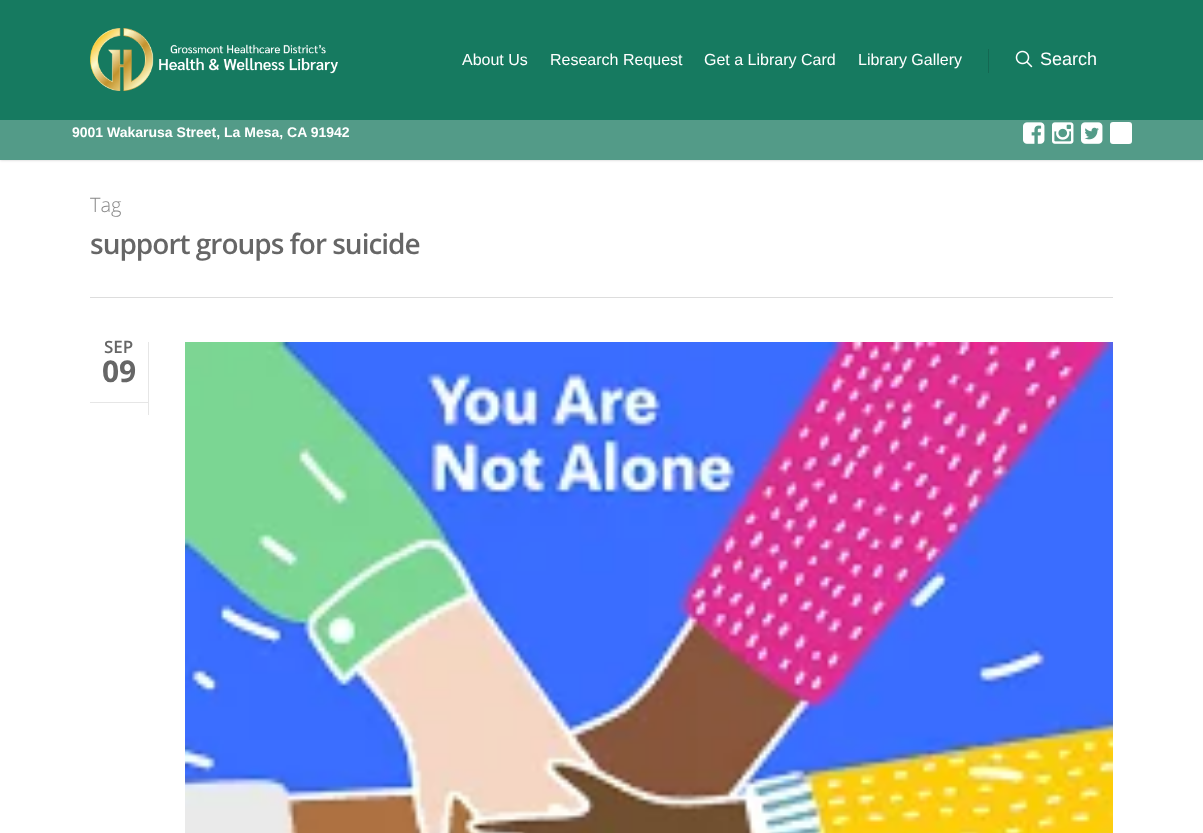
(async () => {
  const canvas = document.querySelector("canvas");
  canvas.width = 1203;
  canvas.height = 833;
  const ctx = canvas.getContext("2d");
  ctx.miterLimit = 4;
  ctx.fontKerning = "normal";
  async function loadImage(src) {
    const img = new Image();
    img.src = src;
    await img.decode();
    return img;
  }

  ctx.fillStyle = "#ffffff";
  ctx.fillRect(0, 0, 1203, 833);
  ctx.fillStyle = "rgba(0, 0, 0, 0.22)";
  ctx.filter = "blur(1.5px)";
  ctx.beginPath();
  ctx.rect(0, 0, 1203, 160);
  ctx.fill();
  ctx.filter = "none";
  ctx.fillStyle = "#167a60";
  ctx.fillRect(0, 0, 1203, 120);
  ctx.drawImage(await loadImage("img/1.png"), 90, 28, 248, 63);
  ctx.fillStyle = "#136852";
  ctx.fillRect(988, 49, 1, 24);
  ctx.drawImage(await loadImage("img/2.png"), 1015, 50, 18, 18);
  ctx.fillStyle = "#539b88";
  ctx.fillRect(0, 120, 1203, 40);
  ctx.drawImage(await loadImage("img/3.png"), 1023, 122, 22, 22);
  ctx.drawImage(await loadImage("img/4.png"), 1052, 122, 22, 22);
  ctx.drawImage(await loadImage("img/5.png"), 1081, 122, 22, 22);
  ctx.fillStyle = "#ffffff";
  ctx.beginPath();
  ctx.roundRect(1110, 122, 22, 22, 3);
  ctx.fill();
  for (const [x, y, w, h, color] of [
    [90, 297, 1023, 1, "#dddddd"],
    [148, 342, 1, 73, "#e6e6e6"],
    [90, 402, 58, 1, "#e6e6e6"],
  ]) {
    ctx.fillStyle = color;
    ctx.fillRect(x, y, w, h);
  }
  ctx.drawImage(await loadImage("img/6.png"), 185, 342, 928, 491);
  ctx.font = "16px Liberation Sans";
  ctx.fillStyle = "#ffffff";
  for (const [text, x, y] of [
    ["About Us", 462, 65],
    ["Research Request", 550, 65],
    ["Get a Library Card", 704, 65],
    ["Library Gallery", 858, 65],
  ]) {
    ctx.fillText(text, x, y);
  }
  ctx.font = "18px Liberation Sans";
  ctx.fillText("Search", 1040, 65);
  ctx.font = "bold 14px Liberation Sans";
  ctx.fillText("9001 Wakarusa Street, La Mesa, CA 91942", 72, 137);
  ctx.font = "300 20px Open Sans";
  ctx.fillStyle = "#888888";
  ctx.fillText("Tag", 90, 212);
  ctx.letterSpacing = "-1px";
  ctx.font = "600 28px Open Sans";
  ctx.fillStyle = "#666666";
  ctx.fillText("support groups for suicide", 90, 254);
  ctx.letterSpacing = "0px";
  ctx.font = "600 17px Open Sans";
  ctx.fillText("SEP", 104, 353);
  ctx.font = "bold 30px Open Sans";
  ctx.fillText("09", 102, 382);
})();
